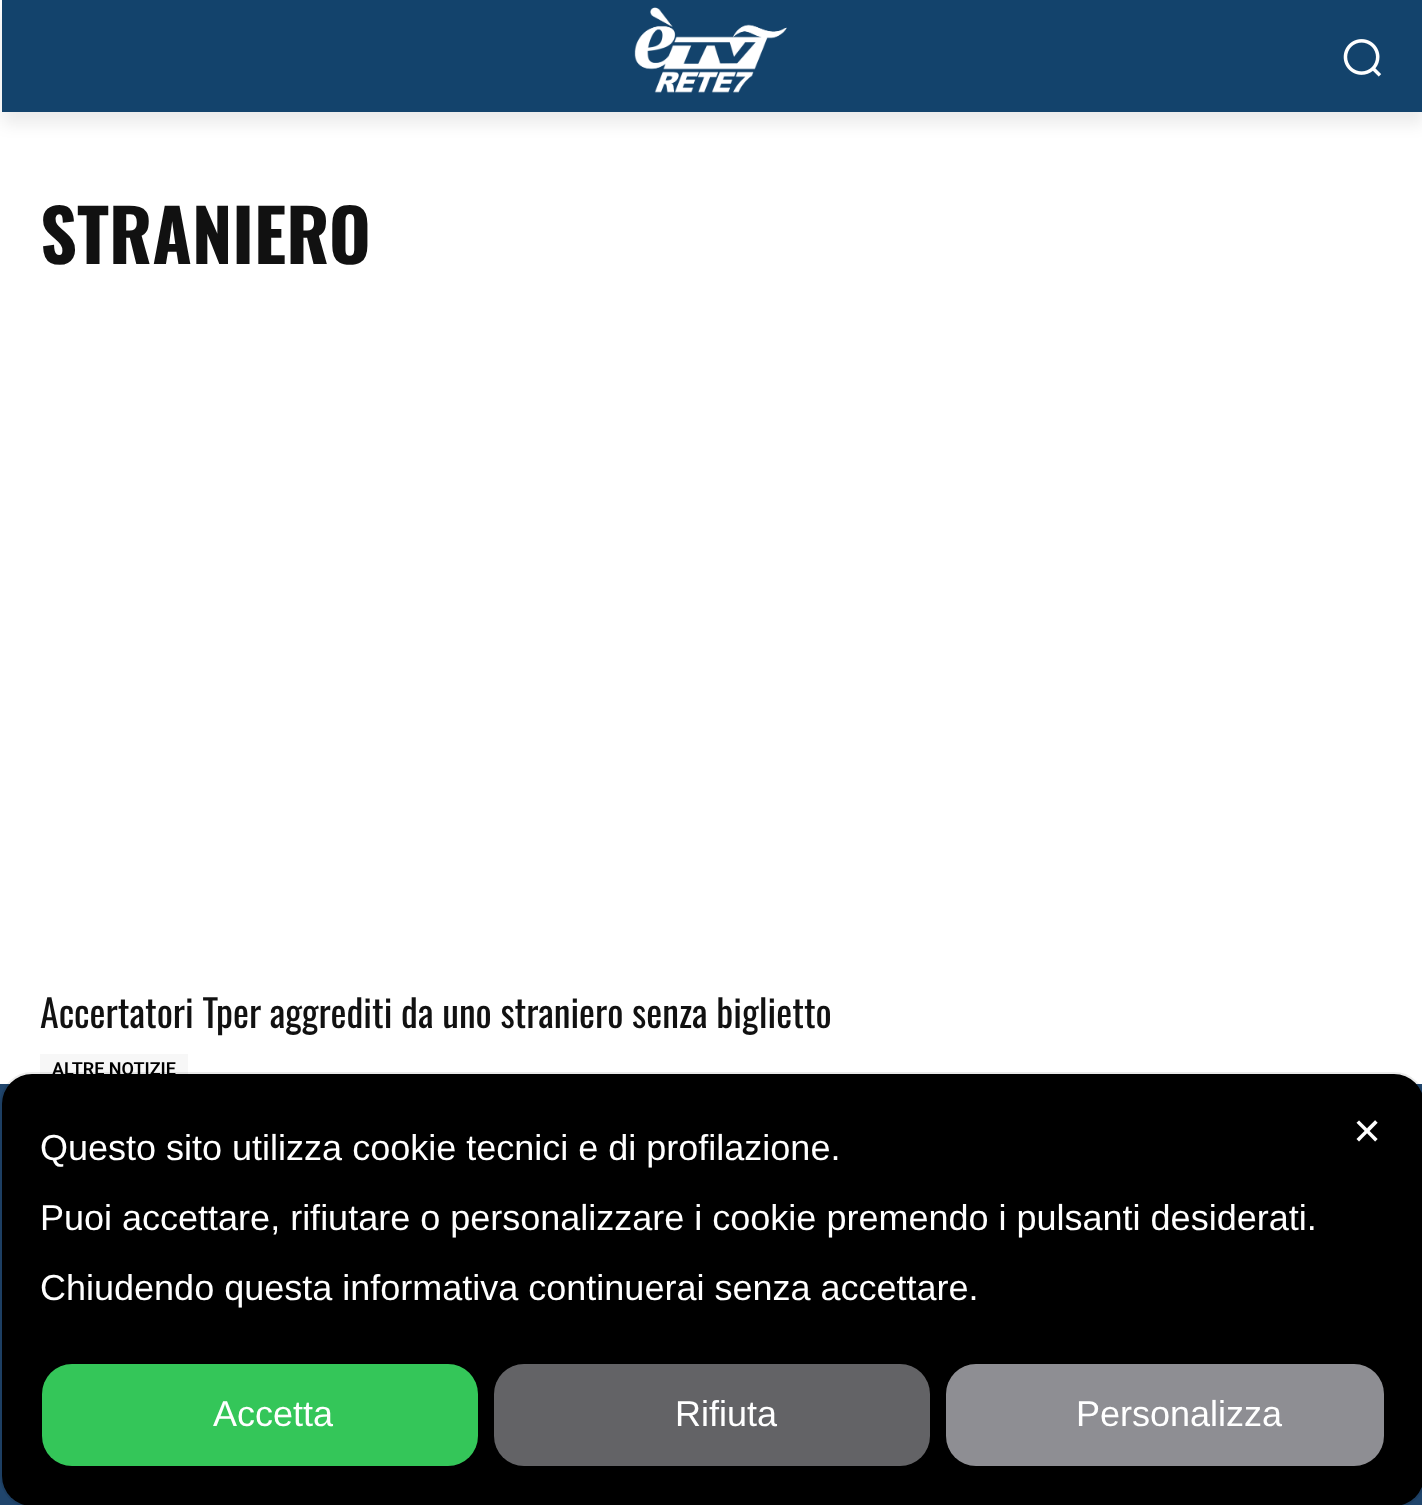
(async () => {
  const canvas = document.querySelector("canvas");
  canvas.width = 1422;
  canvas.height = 1505;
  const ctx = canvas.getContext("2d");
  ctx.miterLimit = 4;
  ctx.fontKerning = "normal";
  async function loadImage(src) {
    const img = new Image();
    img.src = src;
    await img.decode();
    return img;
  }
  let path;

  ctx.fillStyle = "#ffffff";
  ctx.fillRect(0, 0, 1422, 1505);
  ctx.fillStyle = "#13436c";
  ctx.fillRect(2, 0, 1420, 112);
  ctx.drawImage(await loadImage("img/1.png"), 634, 7, 153, 86);
  ctx.drawImage(await loadImage("img/2.png"), 1343, 39, 39, 38);
  ctx.save();
  path = new Path2D("M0 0H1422V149H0ZM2 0H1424V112H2Z");
  ctx.clip(path, "evenodd");
  ctx.fillStyle = "rgba(0, 0, 0, 0.08)";
  ctx.filter = "blur(8px)";
  ctx.beginPath();
  ctx.rect(2, 12, 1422, 112);
  ctx.fill();
  ctx.filter = "none";
  ctx.restore();
  ctx.fillStyle = "#f7f7f7";
  ctx.fillRect(40, 1054, 148, 20);
  ctx.fillStyle = "#20456c";
  ctx.fillRect(0, 1084, 1422, 421);
  ctx.font = "bold 72px Oswald";
  ctx.fillStyle = "#111111";
  ctx.fillText("STRANIERO", 40, 264);
  ctx.font = "38px Oswald";
  ctx.fillText("Accertatori Tper aggrediti da uno straniero senza biglietto", 40, 1028);
  ctx.font = "600 18px Roboto";
  ctx.fillStyle = "#000000";
  ctx.fillText("ALTRE NOTIZIE", 52, 1075);
  ctx.beginPath();
  ctx.roundRect(1, 1073, 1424, 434, 31);
  ctx.strokeStyle = "rgba(0, 0, 0, 0.08)";
  ctx.lineWidth = 2;
  ctx.stroke();
  ctx.beginPath();
  ctx.roundRect(2, 1074, 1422, 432, 30);
  ctx.fill();
  ctx.font = "36px Liberation Sans";
  ctx.fillStyle = "#ffffff";
  for (const [text, x, y] of [
    ["Questo sito utilizza cookie tecnici e di profilazione.", 40, 1160],
    ["Puoi accettare, rifiutare o personalizzare i cookie premendo i pulsanti desiderati.", 40, 1230],
    ["Chiudendo questa informativa continuerai senza accettare.", 40, 1300],
  ]) {
    ctx.fillText(text, x, y);
  }
  ctx.fillStyle = "#34c659";
  ctx.beginPath();
  ctx.roundRect(42, 1364, 436, 102, 30);
  ctx.fill();
  ctx.fillStyle = "#ffffff";
  ctx.fillText("Accetta", 213, 1426);
  ctx.fillStyle = "#636366";
  ctx.beginPath();
  ctx.roundRect(494, 1364, 436, 102, 30);
  ctx.fill();
  ctx.fillStyle = "#ffffff";
  ctx.fillText("Rifiuta", 675, 1426);
  ctx.fillStyle = "#8e8e93";
  ctx.beginPath();
  ctx.roundRect(946, 1364, 438, 102, 30);
  ctx.fill();
  ctx.fillStyle = "#ffffff";
  ctx.fillText("Personalizza", 1076, 1426);
  ctx.font = "36px DejaVu Sans";
  ctx.fillText("✕", 1352, 1144);
})();
